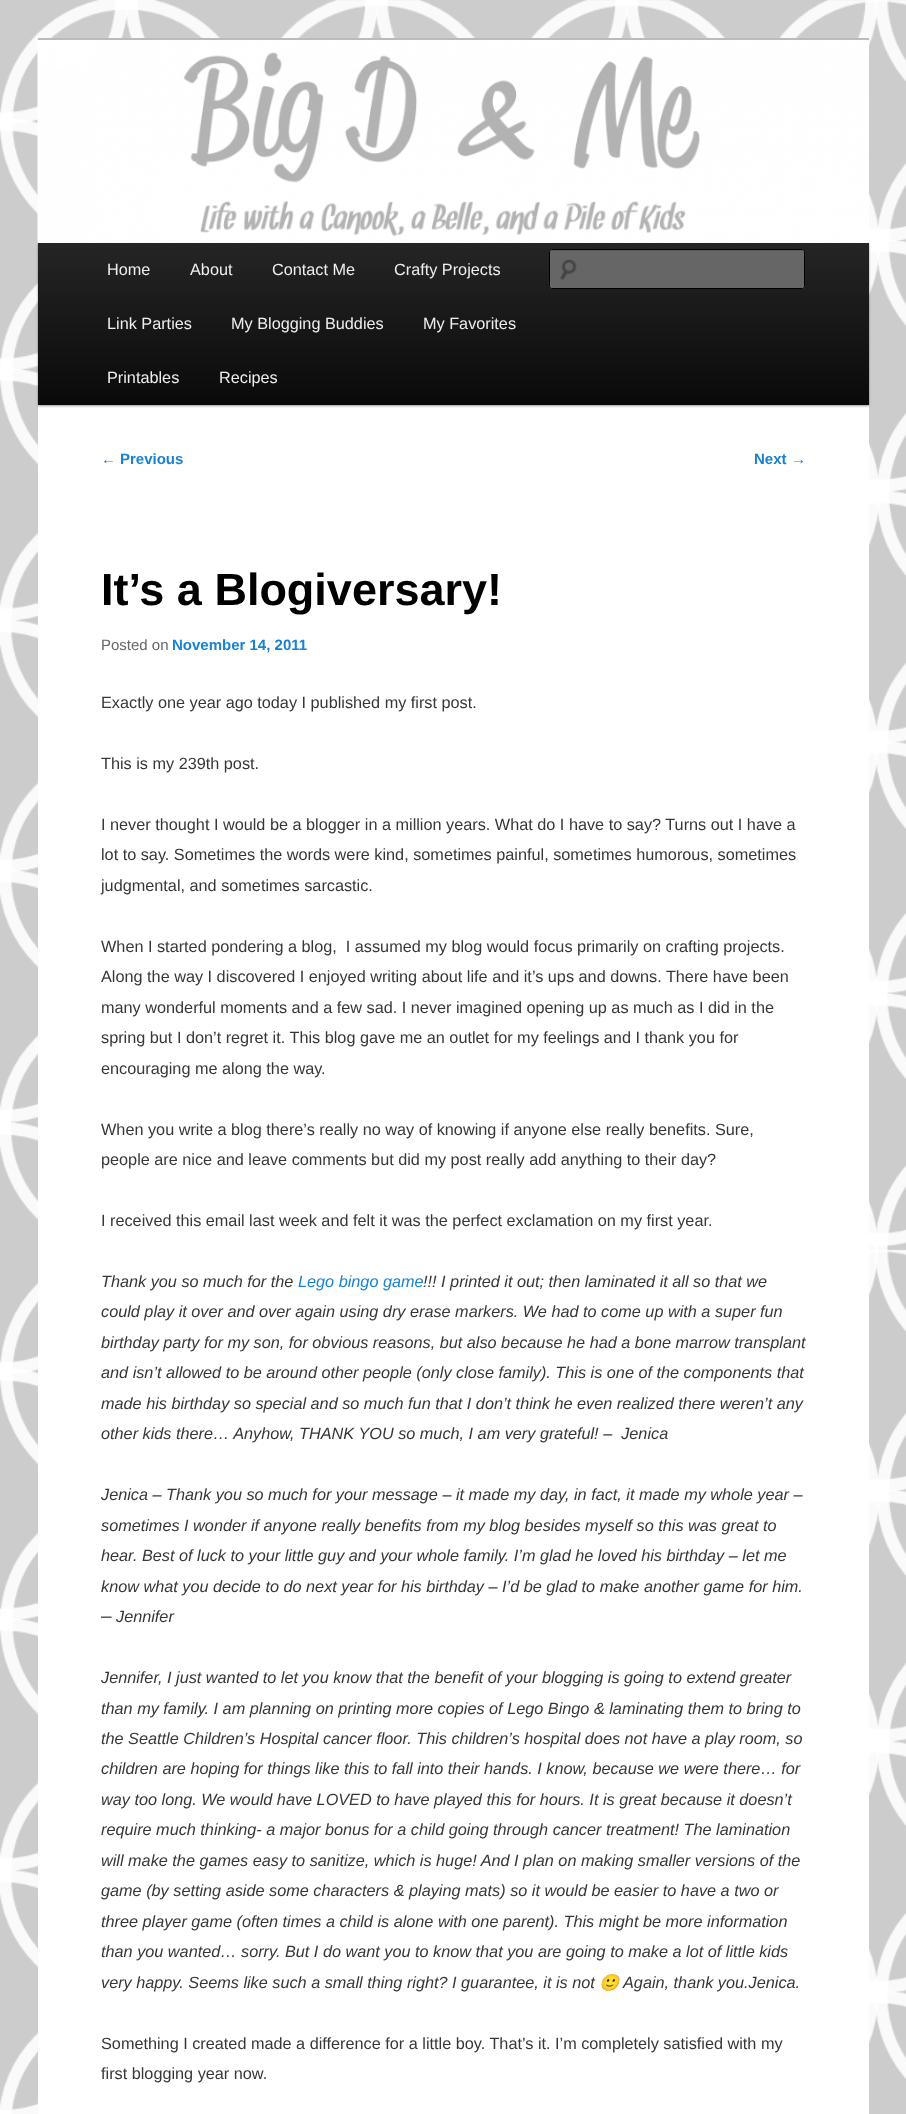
(async () => {
  const canvas = document.querySelector("canvas");
  canvas.width = 906;
  canvas.height = 2114;
  const ctx = canvas.getContext("2d");
  ctx.miterLimit = 4;
  ctx.fontKerning = "normal";
  async function loadImage(src) {
    const img = new Image();
    img.src = src;
    await img.decode();
    return img;
  }
  let gradient, path;

  ctx.fillStyle = "#ffffff";
  ctx.fillRect(0, 0, 906, 2114);
  ctx.drawImage(await loadImage("img/1.png"), 0, 0, 906, 2114);
  ctx.fillRect(38, 41, 831, 2073);
  ctx.fillStyle = "#bbbbbb";
  ctx.fillRect(38, 38, 831, 3);
  ctx.fillStyle = "rgba(0, 0, 0, 0.4)";
  ctx.filter = "blur(1px)";
  ctx.beginPath();
  ctx.rect(38, 244, 831, 162);
  ctx.fill();
  ctx.filter = "none";
  ctx.drawImage(await loadImage("img/2.png"), 37, 40, 832, 203);
  gradient = ctx.createLinearGradient(453, 242, 453, 405);
  gradient.addColorStop(0, "#252525");
  gradient.addColorStop(1, "#0a0a0a");
  ctx.fillStyle = gradient;
  ctx.fillRect(38, 243, 831, 162);
  ctx.fillStyle = "#666666";
  ctx.beginPath();
  ctx.roundRect(549, 249, 256, 40, 2.5);
  ctx.fill();
  ctx.drawImage(await loadImage("img/3.png"), 560, 259, 17, 21);
  ctx.fillStyle = "#5c5c5c";
  path = new Path2D("M551 251H802L804 252V250H551C550 250 550 251 550 252Z");
  ctx.fill(path);
  ctx.beginPath();
  ctx.roundRect(549.5, 249.5, 255, 39, 2);
  ctx.strokeStyle = "#000000";
  ctx.stroke();
  ctx.font = "16.25px Liberation Sans";
  ctx.fillStyle = "#eeeeee";
  for (const [text, x, y] of [
    ["Home", 107, 275],
    ["About", 190, 275],
    ["Contact Me", 272, 275],
    ["Crafty Projects", 394, 275],
    ["Link Parties", 107, 329],
    ["My Blogging Buddies", 231, 329],
    ["My Favorites", 423, 329],
    ["Printables", 107, 383],
    ["Recipes", 219, 383],
  ]) {
    ctx.fillText(text, x, y);
  }
  ctx.font = "15px Liberation Sans";
  ctx.fillStyle = "#1982d1";
  ctx.fillText("←", 101, 464);
  ctx.font = "bold 15px Liberation Sans";
  ctx.fillText("Previous", 120, 464);
  ctx.fillText("Next", 754, 464);
  ctx.font = "15px Liberation Sans";
  ctx.fillText("→", 791, 464);
  ctx.font = "bold 45px Liberation Sans";
  ctx.fillStyle = "#000000";
  ctx.fillText("It’s a Blogiversary!", 101, 605);
  ctx.font = "15px Liberation Sans";
  ctx.fillStyle = "#666666";
  ctx.fillText("Posted on", 101, 650);
  ctx.font = "bold 15px Liberation Sans";
  ctx.fillStyle = "#1982d1";
  ctx.fillText("November 14, 2011", 172, 650);
  ctx.font = "16.25px Liberation Sans";
  ctx.fillStyle = "#373737";
  for (const [text, x, y] of [
    ["Exactly one year ago today I published my first post.", 101, 708],
    ["This is my 239th post.", 101, 769],
    ["I never thought I would be a blogger in a million years. What do I have to say? Turns out I have a", 101, 830],
    ["lot to say. Sometimes the words were kind, sometimes painful, sometimes humorous, sometimes", 101, 860],
    ["judgmental, and sometimes sarcastic.", 101, 891],
    ["When I started pondering a blog,  I assumed my blog would focus primarily on crafting projects.", 101, 952],
    ["Along the way I discovered I enjoyed writing about life and it’s ups and downs. There have been", 101, 982],
    ["many wonderful moments and a few sad. I never imagined opening up as much as I did in the", 101, 1013],
    ["spring but I don’t regret it. This blog gave me an outlet for my feelings and I thank you for", 101, 1043],
    ["encouraging me along the way.", 101, 1074],
    ["When you write a blog there’s really no way of knowing if anyone else really benefits. Sure,", 101, 1135],
    ["people are nice and leave comments but did my post really add anything to their day?", 101, 1165],
    ["I received this email last week and felt it was the perfect exclamation on my first year.", 101, 1226],
  ]) {
    ctx.fillText(text, x, y);
  }
  ctx.font = "italic 16.25px Liberation Sans";
  ctx.fillText("Thank you so much for the", 101, 1287);
  ctx.fillStyle = "#1982d1";
  ctx.fillText("Lego bingo game", 298, 1287);
  ctx.fillStyle = "#373737";
  for (const [text, x, y] of [
    ["!!! I printed it out; then laminated it all so that we", 423, 1287],
    ["could play it over and over again using dry erase markers. We had to come up with a super fun", 101, 1317],
    ["birthday party for my son, for obvious reasons, but also because he had a bone marrow transplant", 101, 1348],
    ["and isn’t allowed to be around other people (only close family). This is one of the components that", 101, 1378],
    ["made his birthday so special and so much fun that I don’t think he even realized there weren’t any", 101, 1409],
    ["other kids there… Anyhow, THANK YOU so much, I am very grateful! –  Jenica", 101, 1439],
    ["Jenica – Thank you so much for your message – it made my day, in fact, it made my whole year –", 101, 1500],
    ["sometimes I wonder if anyone really benefits from my blog besides myself so this was great to", 101, 1531],
    ["hear. Best of luck to your little guy and your whole family. I’m glad he loved his birthday – let me", 101, 1561],
    ["know what you decide to do next year for his birthday – I’d be glad to make another game for him.", 101, 1592],
  ]) {
    ctx.fillText(text, x, y);
  }
  ctx.font = "19px Liberation Sans";
  ctx.fillText("–", 101, 1622);
  ctx.font = "italic 16.25px Liberation Sans";
  for (const [text, x, y] of [
    ["Jennifer", 116, 1622],
    ["Jennifer,", 101, 1683],
    ["I just wanted to let you know that the benefit of your blogging is going to extend greater", 167, 1683],
    ["than my family. I am planning on printing more copies of Lego Bingo & laminating them to bring to", 101, 1714],
    ["the Seattle Children’s Hospital cancer floor. This children’s hospital does not have a play room, so", 101, 1744],
    ["children are hoping for things like this to fall into their hands. I know, because we were there… for", 101, 1774],
    ["way too long. We would have LOVED to have played this for hours. It is great because it doesn’t", 101, 1805],
    ["require much thinking- a major bonus for a child going through cancer treatment! The lamination", 101, 1835],
    ["will make the games easy to sanitize, which is huge! And I plan on making smaller versions of the", 101, 1866],
    ["game (by setting aside some characters & playing mats) so it would be easier to have a two or", 101, 1896],
    ["three player game (often times a child is alone with one parent). This might be more information", 101, 1927],
    ["than you wanted… sorry. But I do want you to know that you are going to make a lot of little kids", 101, 1957],
    ["very happy. Seems like such a small thing right? I guarantee, it is not", 101, 1988],
  ]) {
    ctx.fillText(text, x, y);
  }
  ctx.font = "italic 16.25px Noto Color Emoji";
  ctx.fillText("🙂", 599, 1988);
  ctx.font = "italic 16.25px Liberation Sans";
  ctx.fillText("Again, thank you.Jenica.", 623, 1988);
  ctx.font = "16.25px Liberation Sans";
  for (const [text, x, y] of [
    ["Something I created made a difference for a little boy. That’s it.", 101, 2049],
    ["I’m completely satisfied with my", 555, 2049],
    ["first blogging year now.", 101, 2079],
  ]) {
    ctx.fillText(text, x, y);
  }
})();
